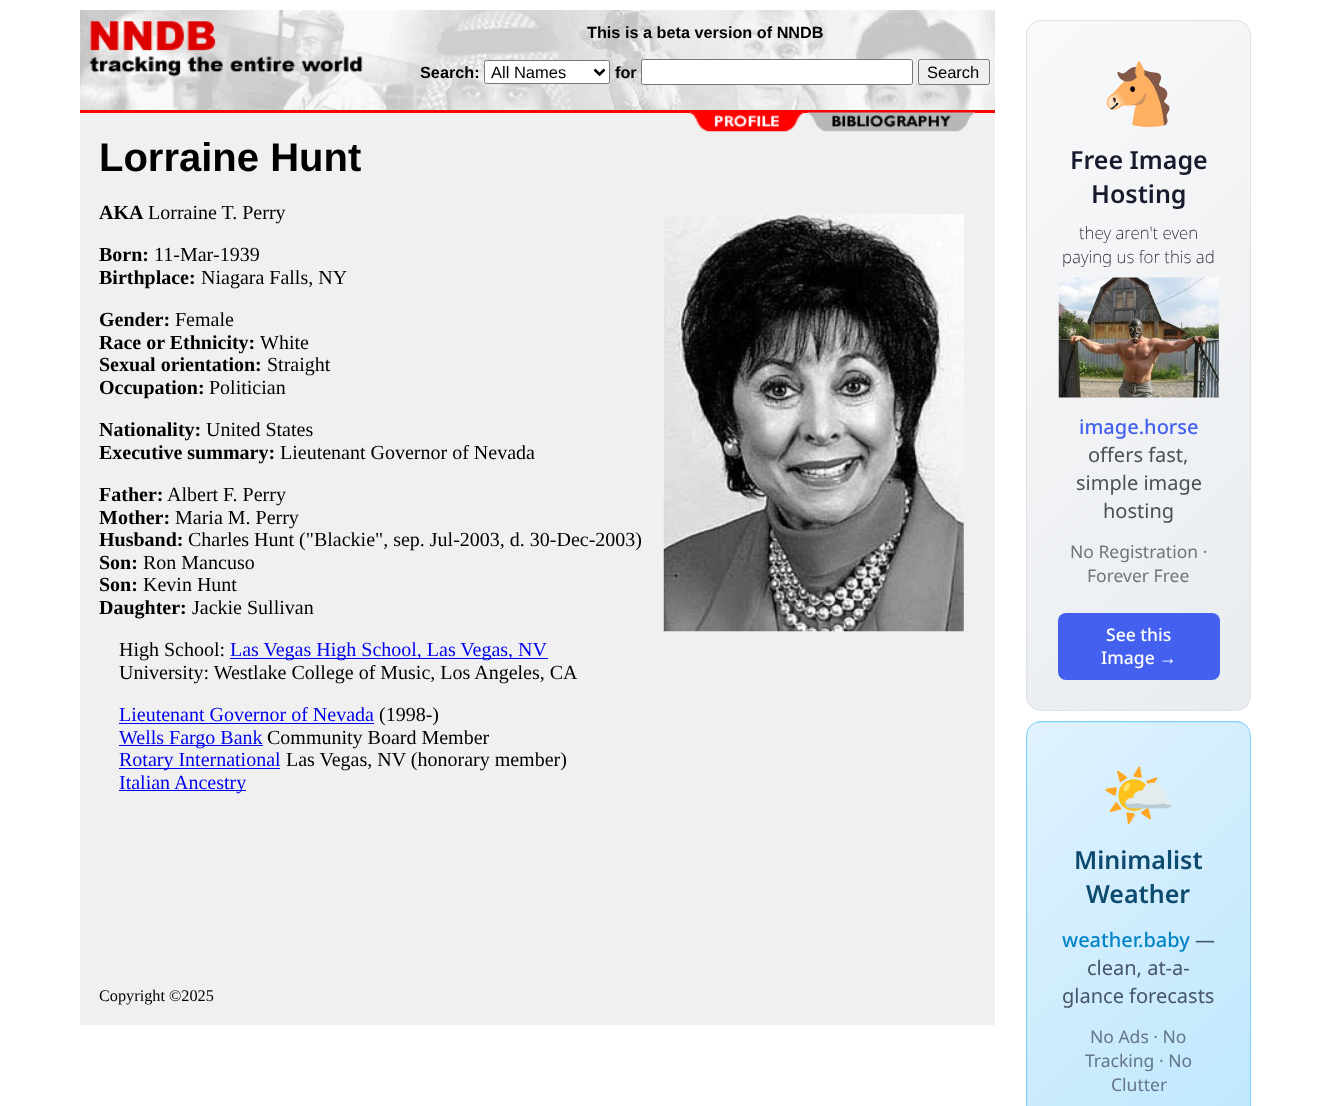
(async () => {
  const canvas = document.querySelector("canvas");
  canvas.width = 1331;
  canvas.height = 1106;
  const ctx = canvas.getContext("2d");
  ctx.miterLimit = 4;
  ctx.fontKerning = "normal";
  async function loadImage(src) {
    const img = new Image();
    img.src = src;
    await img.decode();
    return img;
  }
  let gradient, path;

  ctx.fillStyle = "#ffffff";
  ctx.fillRect(0, 0, 1331, 1106);
  ctx.drawImage(await loadImage("img/1.png"), 80, 10, 915, 100);
  ctx.drawImage(await loadImage("img/2.png"), 89, 21, 274, 56);
  ctx.beginPath();
  ctx.roundRect(484.5, 60.5, 125, 23, 2);
  ctx.fill();
  ctx.strokeStyle = "#767676";
  ctx.stroke();
  path = new Path2D("M594.5 69.5L599.5 74.5L604.5 69.5");
  ctx.strokeStyle = "#000000";
  ctx.lineWidth = 2.5;
  ctx.stroke(path);
  ctx.beginPath();
  ctx.roundRect(641.5, 59.5, 271, 25, 2);
  ctx.fill();
  ctx.strokeStyle = "#767676";
  ctx.lineWidth = 1;
  ctx.stroke();
  ctx.fillStyle = "#efefef";
  ctx.beginPath();
  ctx.roundRect(918.5, 59.5, 71, 25, 2);
  ctx.fill();
  ctx.stroke();
  ctx.fillStyle = "#ff0000";
  ctx.fillRect(80, 110, 915, 3);
  ctx.fillStyle = "#f0f0f0";
  ctx.fillRect(80, 113, 915, 912);
  ctx.drawImage(await loadImage("img/3.png"), 689, 112, 287, 20);
  ctx.drawImage(await loadImage("img/4.png"), 663, 214, 301, 418);
  for (const [x, y, w, h, color] of [
    [230, 658, 318, 1, "#0000ee"],
    [119, 723, 255, 1, "#0000ee"],
    [119, 745, 144, 1, "#0000ee"],
    [119, 768, 161, 1, "#0000ee"],
    [119, 790, 127, 1, "#0000ee"],
  ]) {
    ctx.fillStyle = color;
    ctx.fillRect(x, y, w, h);
  }
  ctx.save();
  ctx.beginPath();
  ctx.roundRect(1026, 20, 225, 691, 15);
  ctx.clip();
  gradient = ctx.createLinearGradient(688, 138, 1144, 593);
  gradient.addColorStop(0, "#f8f9fa");
  gradient.addColorStop(1, "#e9ecef");
  ctx.fillStyle = gradient;
  ctx.fillRect(1026, 21, 2, 689);
  gradient = ctx.createLinearGradient(911, 138, 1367, 593);
  gradient.addColorStop(0, "#f8f9fa");
  gradient.addColorStop(1, "#e9ecef");
  ctx.fillStyle = gradient;
  ctx.fillRect(1028, 21, 222, 689);
  ctx.restore();
  ctx.beginPath();
  ctx.roundRect(1026.5, 20.5, 224, 690, 14.5);
  ctx.strokeStyle = "#dee2e6";
  ctx.stroke();
  ctx.drawImage(await loadImage("img/5.png"), 1058, 277, 161, 121);
  ctx.fillStyle = "#4361ee";
  ctx.beginPath();
  ctx.roundRect(1058, 613, 162, 67, 8);
  ctx.fill();
  ctx.save();
  ctx.beginPath();
  ctx.roundRect(1026, 721, 225, 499, 15);
  ctx.clip();
  gradient = ctx.createLinearGradient(959, 295, 1318, 654);
  gradient.addColorStop(0, "#e0f2fe");
  gradient.addColorStop(1, "#bae6fd");
  ctx.fillStyle = gradient;
  ctx.fillRect(1028, 721, 222, 2);
  gradient = ctx.createLinearGradient(737, 791, 1096, 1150);
  gradient.addColorStop(0, "#e0f2fe");
  gradient.addColorStop(1, "#bae6fd");
  ctx.fillStyle = gradient;
  ctx.fillRect(1026, 723, 2, 383);
  gradient = ctx.createLinearGradient(959, 791, 1318, 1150);
  gradient.addColorStop(0, "#e0f2fe");
  gradient.addColorStop(1, "#bae6fd");
  ctx.fillStyle = gradient;
  ctx.fillRect(1028, 723, 222, 383);
  ctx.restore();
  ctx.beginPath();
  ctx.roundRect(1026.5, 721.5, 224, 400, 14.5);
  ctx.strokeStyle = "#7dd3fc";
  ctx.stroke();
  ctx.font = "bold 16.25px Liberation Sans";
  ctx.fillStyle = "#000000";
  ctx.fillText("This is a beta version of NNDB", 587, 38);
  ctx.fillText("Search:", 420, 78);
  ctx.font = "16.5px Liberation Sans";
  ctx.fillText("All Names", 491, 78);
  ctx.font = "bold 16.25px Liberation Sans";
  ctx.fillText("for", 615, 78);
  ctx.font = "16.5px Liberation Sans";
  ctx.fillText("Search", 927, 78);
  ctx.font = "bold 40px Liberation Sans";
  ctx.fillText("Lorraine Hunt", 99, 171);
  ctx.font = "bold 20px Liberation Serif";
  ctx.fillText("AKA", 99, 219);
  ctx.font = "20px Liberation Serif";
  ctx.fillText("Lorraine T. Perry", 148, 219);
  ctx.font = "bold 20px Liberation Serif";
  ctx.fillText("Born:", 99, 261);
  ctx.font = "20px Liberation Serif";
  ctx.fillText("11-Mar", 154, 261);
  ctx.fillText("-1939", 213, 261);
  ctx.font = "bold 20px Liberation Serif";
  ctx.fillText("Birthplace:", 99, 284);
  ctx.font = "20px Liberation Serif";
  ctx.fillText("Niagara Falls, NY", 201, 284);
  ctx.font = "bold 20px Liberation Serif";
  ctx.fillText("Gender:", 99, 326);
  ctx.font = "20px Liberation Serif";
  ctx.fillText("Female", 175, 326);
  ctx.font = "bold 20px Liberation Serif";
  ctx.fillText("Race or Ethnicity:", 99, 349);
  ctx.font = "20px Liberation Serif";
  ctx.fillText("White", 260, 349);
  ctx.font = "bold 20px Liberation Serif";
  ctx.fillText("Sexual orientation:", 99, 371);
  ctx.font = "20px Liberation Serif";
  ctx.fillText("Straight", 267, 371);
  ctx.font = "bold 20px Liberation Serif";
  ctx.fillText("Occupation:", 99, 394);
  ctx.font = "20px Liberation Serif";
  ctx.fillText("Politician", 209, 394);
  ctx.font = "bold 20px Liberation Serif";
  ctx.fillText("Nationality:", 99, 436);
  ctx.font = "20px Liberation Serif";
  ctx.fillText("United States", 206, 436);
  ctx.font = "bold 20px Liberation Serif";
  ctx.fillText("Executive summary:", 99, 459);
  ctx.font = "20px Liberation Serif";
  ctx.fillText("Lieutenant Governor of Nevada", 280, 459);
  ctx.font = "bold 20px Liberation Serif";
  ctx.fillText("Father:", 99, 501);
  ctx.font = "20px Liberation Serif";
  ctx.fillText("Albert F. Perry", 167, 501);
  ctx.font = "bold 20px Liberation Serif";
  ctx.fillText("Mother:", 99, 524);
  ctx.font = "20px Liberation Serif";
  ctx.fillText("Maria M. Perry", 175, 524);
  ctx.font = "bold 20px Liberation Serif";
  ctx.fillText("Husband:", 99, 546);
  ctx.font = "20px Liberation Serif";
  ctx.fillText("Charles Hunt (\"Blackie\", sep. Jul-2003, d. 30-Dec-2003)", 188, 546);
  ctx.font = "bold 20px Liberation Serif";
  ctx.fillText("Son:", 99, 569);
  ctx.font = "20px Liberation Serif";
  ctx.fillText("Ron Mancuso", 143, 569);
  ctx.font = "bold 20px Liberation Serif";
  ctx.fillText("Son:", 99, 591);
  ctx.font = "20px Liberation Serif";
  ctx.fillText("Kevin Hunt", 143, 591);
  ctx.font = "bold 20px Liberation Serif";
  ctx.fillText("Daughter:", 99, 614);
  ctx.font = "20px Liberation Serif";
  ctx.fillText("Jackie Sullivan", 192, 614);
  ctx.fillText("High School:", 119, 656);
  ctx.fillStyle = "#0000ee";
  ctx.fillText("Las Vegas High School, Las Vegas, NV", 230, 656);
  ctx.fillStyle = "#000000";
  ctx.fillText("University: Westlake College of Music, Los Angeles, CA", 119, 679);
  ctx.fillStyle = "#0000ee";
  ctx.fillText("Lieutenant Governor of Nevada", 119, 721);
  ctx.fillStyle = "#000000";
  ctx.fillText("(1998-)", 379, 721);
  ctx.fillStyle = "#0000ee";
  ctx.fillText("Wells Fargo Bank", 119, 744);
  ctx.fillStyle = "#000000";
  ctx.fillText("Community Board Member", 267, 744);
  ctx.fillStyle = "#0000ee";
  ctx.fillText("Rotary International", 119, 766);
  ctx.fillStyle = "#000000";
  ctx.fillText("Las Vegas, NV (honorary member)", 286, 766);
  ctx.fillStyle = "#0000ee";
  ctx.fillText("Italian Ancestry", 119, 789);
  ctx.font = "16.25px Liberation Serif";
  ctx.fillStyle = "#000000";
  ctx.fillText("Copyright ©2025", 99, 1001);
  ctx.font = "60px Noto Color Emoji";
  ctx.fillStyle = "#0000ee";
  ctx.fillText("🐴", 1101, 115);
  ctx.font = "600 25px Noto Sans";
  ctx.fillStyle = "#1a1a2e";
  ctx.fillText("Free Image", 1070, 169);
  ctx.fillText("Hosting", 1091, 203);
  ctx.font = "200 17px Noto Sans";
  ctx.fillStyle = "#0a0a1e";
  ctx.fillText("they aren't even", 1079, 239);
  ctx.fillText("paying us for this ad", 1062, 263);
  ctx.font = "500 20px Noto Sans";
  ctx.fillStyle = "#4361ee";
  ctx.fillText("image.horse", 1079, 434);
  ctx.font = "20px Noto Sans";
  ctx.fillStyle = "#495057";
  for (const [text, x, y] of [
    ["offers fast,", 1088, 462],
    ["simple image", 1076, 490],
    ["hosting", 1103, 518],
  ]) {
    ctx.fillText(text, x, y);
  }
  ctx.font = "17.5px Noto Sans";
  ctx.fillStyle = "#6c757d";
  ctx.fillText("No Registration ·", 1070, 558);
  ctx.fillText("Forever Free", 1087, 582);
  ctx.font = "500 17.5px Noto Sans";
  ctx.fillStyle = "#ffffff";
  ctx.fillText("See this", 1106, 641);
  ctx.fillText("Image", 1101, 664);
  ctx.font = "17.5px Liberation Sans";
  ctx.fillText("→", 1159, 664);
  ctx.font = "60px Noto Color Emoji";
  ctx.fillStyle = "#0000ee";
  ctx.fillText("🌤️", 1101, 816);
  ctx.font = "600 25px Noto Sans";
  ctx.fillStyle = "#0c4a6e";
  ctx.fillText("Minimalist", 1074, 869);
  ctx.fillText("Weather", 1086, 903);
  ctx.font = "500 20px Noto Sans";
  ctx.fillStyle = "#0284c7";
  ctx.fillText("weather.baby", 1062, 947);
  ctx.font = "20px Noto Sans";
  ctx.fillStyle = "#475569";
  for (const [text, x, y] of [
    ["—", 1195, 947],
    ["clean, at-a-", 1087, 975],
    ["glance forecasts", 1062, 1003],
  ]) {
    ctx.fillText(text, x, y);
  }
  ctx.font = "17.5px Noto Sans";
  ctx.fillStyle = "#64748b";
  for (const [text, x, y] of [
    ["No Ads · No", 1090, 1043],
    ["Tracking · No", 1085, 1067],
    ["Clutter", 1111, 1091],
  ]) {
    ctx.fillText(text, x, y);
  }
})();
